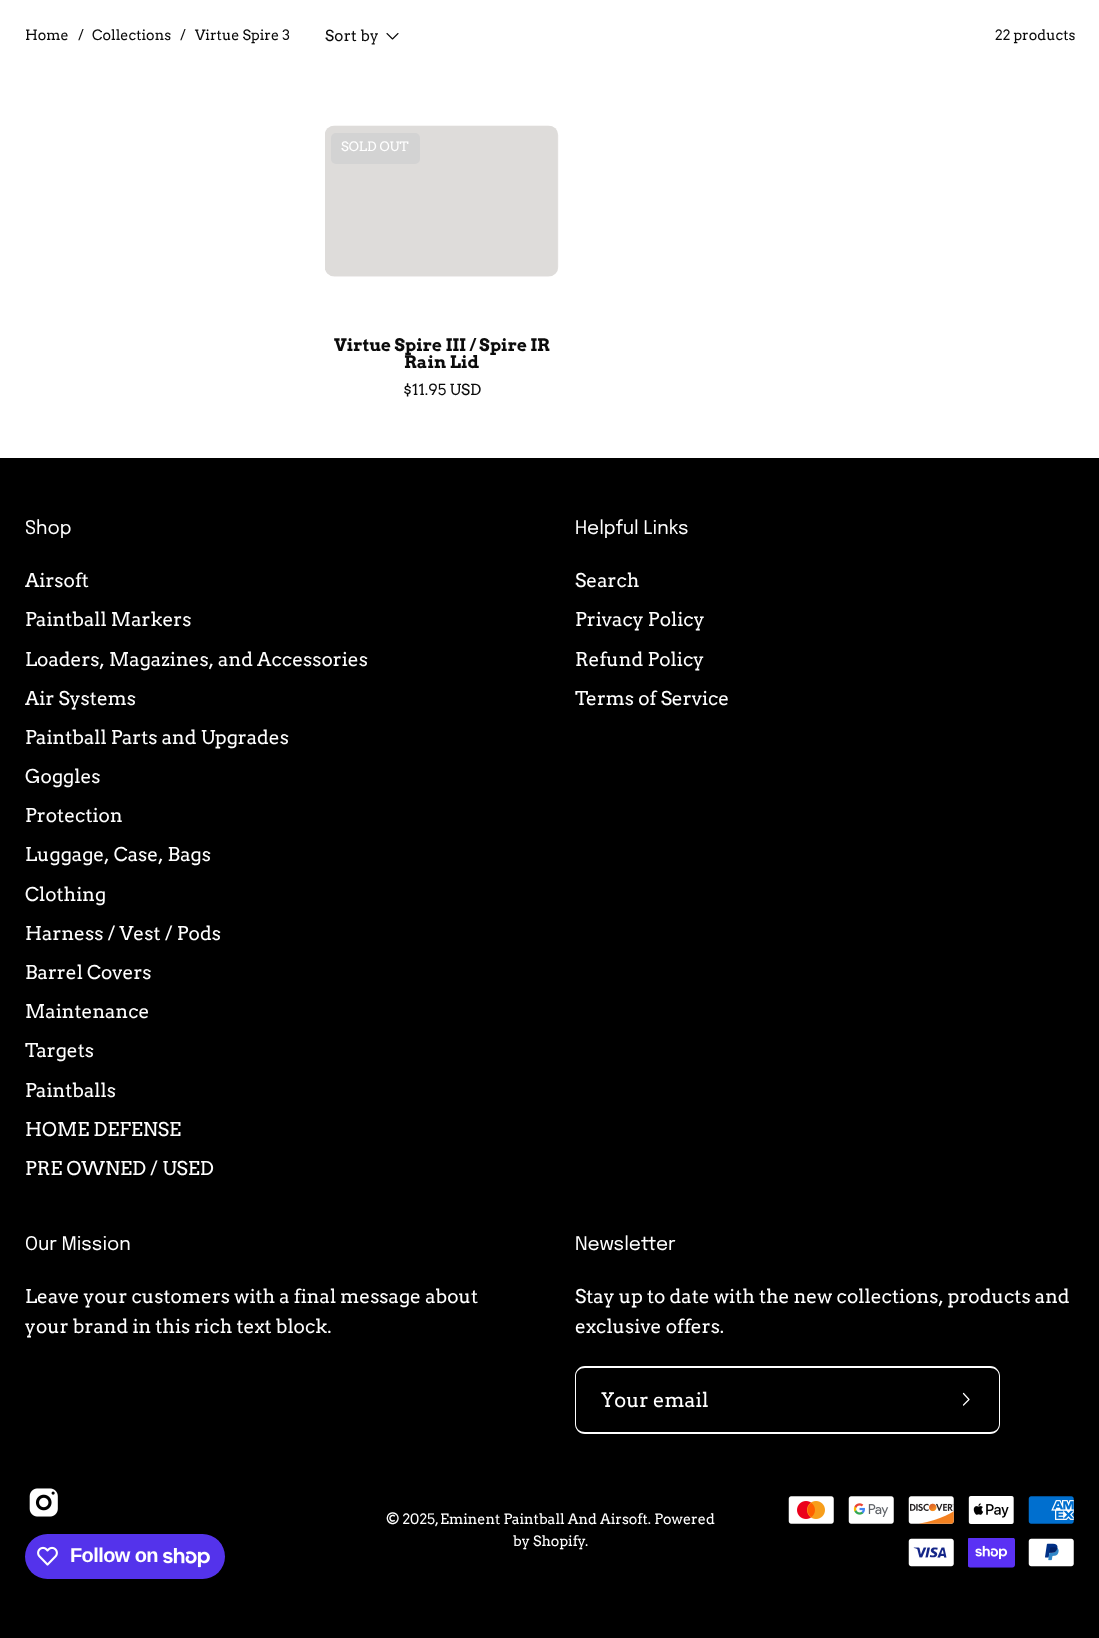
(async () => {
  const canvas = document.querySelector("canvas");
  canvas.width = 1099;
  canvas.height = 1638;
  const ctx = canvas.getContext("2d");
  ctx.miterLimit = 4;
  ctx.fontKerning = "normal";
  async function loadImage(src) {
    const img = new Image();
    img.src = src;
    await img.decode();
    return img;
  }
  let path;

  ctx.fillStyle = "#ffffff";
  ctx.fillRect(0, 0, 1099, 1638);
  path = new Path2D("M398 33.5L392.5 39L387 33.5");
  ctx.strokeStyle = "#0b0b0b";
  ctx.lineWidth = 1.1;
  ctx.lineCap = "round";
  ctx.lineJoin = "round";
  ctx.stroke(path);
  ctx.drawImage(await loadImage("img/1.png"), 325, 125, 234, 152);
  ctx.fillStyle = "#d3d3d3";
  ctx.beginPath();
  ctx.roundRect(331, 133, 89, 31, 5);
  ctx.fill();
  ctx.fillStyle = "#000000";
  ctx.fillRect(0, 458, 1099, 1180);
  ctx.fillStyle = "#ffffff";
  path = new Path2D("M585 1366H932V1434H585C579 1434 575 1429 575 1424V1376C575 1371 579 1366 585 1366ZM585 1368H932V1432H585C580 1432 576 1429 576 1424V1376C576 1371 580 1368 585 1368Z");
  ctx.fill(path, "evenodd");
  path = new Path2D("M932 1366H990C996 1366 1000 1371 1000 1376V1424C1000 1429 996 1434 990 1434H932ZM932 1368H990C995 1368 999 1371 999 1376V1424C999 1429 995 1432 990 1432H932Z");
  ctx.fill(path, "evenodd");
  path = new Path2D("M963.5 1393.5L969 1399.5L963.5 1405");
  ctx.strokeStyle = "#ffffff";
  ctx.lineWidth = 1.2;
  ctx.stroke(path);
  ctx.drawImage(await loadImage("img/2.png"), 788, 1496, 46, 28);
  ctx.drawImage(await loadImage("img/3.png"), 848, 1496, 46, 28);
  ctx.drawImage(await loadImage("img/4.png"), 908, 1496, 46, 28);
  ctx.drawImage(await loadImage("img/5.png"), 968, 1496, 46, 28);
  ctx.drawImage(await loadImage("img/6.png"), 1028, 1496, 46, 28);
  ctx.drawImage(await loadImage("img/7.png"), 908, 1538, 46, 29);
  ctx.drawImage(await loadImage("img/8.png"), 968, 1538, 47, 30);
  ctx.drawImage(await loadImage("img/9.png"), 1028, 1538, 46, 29);
  ctx.drawImage(await loadImage("img/10.png"), 29, 1488, 29, 29);
  ctx.fillStyle = "#5433eb";
  ctx.beginPath();
  ctx.roundRect(25, 1534, 200, 45, 22.5);
  ctx.fill();
  ctx.drawImage(await loadImage("img/11.png"), 37, 1546, 21, 20);
  ctx.drawImage(await loadImage("img/12.png"), 163, 1548, 47, 20);
  ctx.font = "14.25px Arvo";
  ctx.fillStyle = "#0b0b0b";
  for (const [text, x, y] of [
    ["Home", 25, 40],
    ["/", 78, 40],
    ["Collections", 92, 40],
    ["/", 180, 40],
    ["Virtue Spire 3", 195, 40],
  ]) {
    ctx.fillText(text, x, y);
  }
  ctx.letterSpacing = "0.25px";
  ctx.font = "15.25px Arvo";
  ctx.fillText("Sort by", 325, 41);
  ctx.letterSpacing = "0px";
  ctx.font = "14.25px Arvo";
  ctx.fillText("22 products", 995, 40);
  ctx.font = "13px Arvo";
  ctx.fillStyle = "#ffffff";
  ctx.fillText("SOLD OUT", 341, 151);
  ctx.font = "bold 17.1px Arvo";
  ctx.fillStyle = "#0b0b0b";
  ctx.fillText("Virtue Spire III / Spire IR", 334, 351);
  ctx.fillText("Rain Lid", 404, 368);
  ctx.font = "15.25px Arvo";
  ctx.fillText("$11.95 USD", 403, 395);
  ctx.font = "18.75px Epilogue";
  ctx.fillStyle = "#ffffff";
  ctx.fillText("Shop", 25, 534);
  ctx.font = "19px Arvo";
  for (const [text, x, y] of [
    ["Airsoft", 25, 587],
    ["Paintball Markers", 25, 626],
    ["Loaders, Magazines, and Accessories", 25, 666],
    ["Air Systems", 25, 705],
    ["Paintball Parts and Upgrades", 25, 744],
    ["Goggles", 25, 783],
    ["Protection", 25, 822],
    ["Luggage, Case, Bags", 25, 861],
    ["Clothing", 25, 901],
    ["Harness / Vest / Pods", 25, 940],
    ["Barrel Covers", 25, 979],
    ["Maintenance", 25, 1018],
    ["Targets", 25, 1057],
    ["Paintballs", 25, 1097],
    ["HOME DEFENSE", 25, 1136],
    ["PRE OWNED / USED", 25, 1175],
  ]) {
    ctx.fillText(text, x, y);
  }
  ctx.font = "18.75px Epilogue";
  ctx.fillText("Helpful Links", 575, 534);
  ctx.font = "19px Arvo";
  for (const [text, x, y] of [
    ["Search", 575, 587],
    ["Privacy Policy", 575, 626],
    ["Refund Policy", 575, 666],
    ["Terms of Service", 575, 705],
  ]) {
    ctx.fillText(text, x, y);
  }
  ctx.font = "18.75px Epilogue";
  ctx.fillText("Our Mission", 25, 1250);
  ctx.font = "19px Arvo";
  ctx.fillText("Leave your customers with a final message about", 25, 1303);
  ctx.fillText("your brand in this rich text block.", 25, 1333);
  ctx.font = "18.75px Epilogue";
  ctx.fillText("Newsletter", 575, 1250);
  ctx.font = "19px Arvo";
  ctx.fillText("Stay up to date with the new collections, products and", 575, 1303);
  ctx.fillText("exclusive offers.", 575, 1333);
  ctx.font = "20px Arvo";
  ctx.fillText("Your email", 601, 1407);
  ctx.font = "14.25px Arvo";
  for (const [text, x, y] of [
    ["© 2025,", 386, 1524],
    ["Eminent Paintball And Airsoft. Powered", 440, 1524],
    ["by Shopify", 513, 1546],
    [".", 585, 1546],
  ]) {
    ctx.fillText(text, x, y);
  }
  ctx.letterSpacing = "-0.6px";
  ctx.font = "bold 20px Liberation Sans";
  ctx.fillText("Follow on", 70, 1562);
})();
